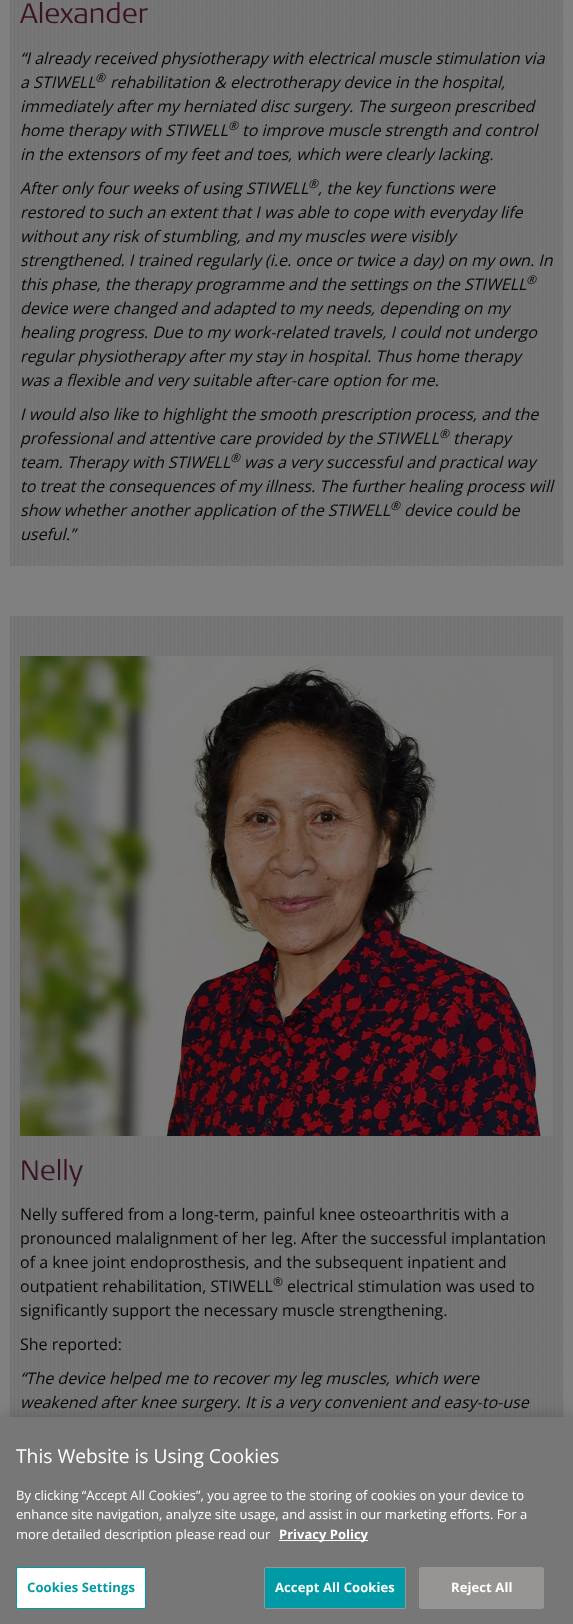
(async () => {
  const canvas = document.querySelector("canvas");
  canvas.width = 573;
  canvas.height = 1624;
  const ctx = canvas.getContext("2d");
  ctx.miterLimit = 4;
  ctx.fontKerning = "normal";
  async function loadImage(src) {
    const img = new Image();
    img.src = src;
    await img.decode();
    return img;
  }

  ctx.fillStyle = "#808080";
  ctx.fillRect(0, 0, 573, 1624);
  ctx.drawImage(await loadImage("img/1.png"), 10, 0, 553, 566);
  ctx.drawImage(await loadImage("img/2.png"), 10, 616, 553, 801);
  ctx.drawImage(await loadImage("img/3.png"), 20, 656, 533, 480);
  ctx.fillStyle = "rgba(0, 0, 0, 0.2)";
  ctx.filter = "blur(9px)";
  ctx.beginPath();
  ctx.rect(0, 1417, 573, 207);
  ctx.fill();
  ctx.filter = "none";
  ctx.fillStyle = "#777777";
  ctx.fillRect(0, 1417, 573, 207);
  ctx.fillStyle = "#ffffff";
  ctx.fillRect(279, 1540, 89, 1);
  ctx.beginPath();
  ctx.roundRect(16.5, 1567.5, 129, 41, 1.5);
  ctx.fill();
  ctx.strokeStyle = "#009aa6";
  ctx.stroke();
  ctx.fillStyle = "#009aa6";
  ctx.beginPath();
  ctx.roundRect(264.5, 1567.5, 141, 41, 1.5);
  ctx.fill();
  ctx.strokeStyle = "#979594";
  ctx.stroke();
  ctx.fillStyle = "#979594";
  ctx.beginPath();
  ctx.roundRect(419.5, 1567.5, 124, 41, 1.5);
  ctx.fill();
  ctx.stroke();
  ctx.font = "300 28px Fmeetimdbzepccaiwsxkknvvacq";
  ctx.fillStyle = "#3b1126";
  ctx.fillText("Alexander", 20, 23);
  ctx.font = "italic 16px Open Sans";
  ctx.fillStyle = "#070707";
  ctx.fillText("“I already received physiotherapy with electrical muscle stimulation via", 20, 64);
  ctx.fillText("a STIWELL", 20, 88);
  ctx.font = "italic 12px Open Sans";
  ctx.fillText("®", 95, 82);
  ctx.font = "italic 16px Open Sans";
  for (const [text, x, y] of [
    ["rehabilitation & electrotherapy device in the hospital,", 110, 88],
    ["immediately after my herniated disc surgery. The surgeon prescribed", 20, 112],
    ["home therapy with STIWELL", 20, 136],
  ]) {
    ctx.fillText(text, x, y);
  }
  ctx.font = "italic 12px Open Sans";
  ctx.fillText("®", 228, 130);
  ctx.font = "italic 16px Open Sans";
  for (const [text, x, y] of [
    ["to improve muscle strength and control", 242, 136],
    ["in the extensors of my feet and toes, which were clearly lacking.", 20, 160],
    ["After only four weeks of using STIWELL", 20, 194],
    [", the key functions were", 318, 194],
  ]) {
    ctx.fillText(text, x, y);
  }
  ctx.font = "italic 12px Open Sans";
  ctx.fillText("®", 308, 188);
  ctx.font = "italic 16px Open Sans";
  for (const [text, x, y] of [
    ["restored to such an extent that I was able to cope with everyday life", 20, 218],
    ["without any risk of stumbling, and my muscles were visibly", 20, 242],
    ["strengthened. I trained regularly (i.e. once or twice a day) on my own. In", 20, 266],
    ["this phase, the therapy programme and the settings on the STIWELL", 20, 290],
  ]) {
    ctx.fillText(text, x, y);
  }
  ctx.font = "italic 12px Open Sans";
  ctx.fillText("®", 526, 284);
  ctx.font = "italic 16px Open Sans";
  for (const [text, x, y] of [
    ["device were changed and adapted to my needs, depending on my", 20, 314],
    ["healing progress. Due to my work-related travels, I could not undergo", 20, 338],
    ["regular physiotherapy after my stay in hospital. Thus home therapy", 20, 362],
    ["was a flexible and very suitable after-care option for me.", 20, 386],
    ["I would also like to highlight the smooth prescription process, and the", 20, 420],
    ["professional and attentive care provided by the STIWELL", 20, 444],
  ]) {
    ctx.fillText(text, x, y);
  }
  ctx.font = "italic 12px Open Sans";
  ctx.fillText("®", 439, 438);
  ctx.font = "italic 16px Open Sans";
  ctx.fillText("therapy", 453, 444);
  ctx.fillText("team. Therapy with STIWELL", 20, 468);
  ctx.font = "italic 12px Open Sans";
  ctx.fillText("®", 230, 462);
  ctx.font = "italic 16px Open Sans";
  for (const [text, x, y] of [
    ["was a very successful and practical way", 244, 468],
    ["to treat the consequences of my illness. The further healing process will", 20, 492],
    ["show whether another application of the STIWELL", 20, 516],
  ]) {
    ctx.fillText(text, x, y);
  }
  ctx.font = "italic 12px Open Sans";
  ctx.fillText("®", 390, 510);
  ctx.font = "italic 16px Open Sans";
  ctx.fillText("device could be", 404, 516);
  ctx.fillText("useful.”", 20, 540);
  ctx.font = "300 28px Fmeetimdbzepccaiwsxkknvvacq";
  ctx.fillStyle = "#3b1126";
  ctx.fillText("Nelly", 20, 1180);
  ctx.font = "16px Open Sans";
  ctx.fillStyle = "#070707";
  for (const [text, x, y] of [
    ["Nelly suffered from a long-term, painful knee osteoarthritis with a", 20, 1220],
    ["pronounced malalignment of her leg. After the successful implantation", 20, 1244],
    ["of a knee joint endoprosthesis, and the subsequent inpatient and", 20, 1268],
    ["outpatient rehabilitation, STIWELL", 20, 1292],
  ]) {
    ctx.fillText(text, x, y);
  }
  ctx.font = "12px Open Sans";
  ctx.fillText("®", 273, 1286);
  ctx.font = "16px Open Sans";
  for (const [text, x, y] of [
    ["electrical stimulation was used to", 287, 1292],
    ["significantly support the necessary muscle strengthening.", 20, 1316],
    ["She reported:", 20, 1350],
  ]) {
    ctx.fillText(text, x, y);
  }
  ctx.font = "italic 16px Open Sans";
  ctx.fillText("“The device helped me to recover my leg muscles, which were", 20, 1384);
  ctx.fillText("weakened after knee surgery. It is a very convenient and easy-to-use", 20, 1408);
  ctx.font = "19.25px Open Sans";
  ctx.fillStyle = "#ffffff";
  ctx.fillText("This Website is Using Cookies", 16, 1463);
  ctx.font = "13px Open Sans";
  for (const [text, x, y] of [
    ["By clicking “Accept All Cookies”, you agree to the storing of cookies on your device to", 16, 1500],
    ["enhance site navigation, analyze site usage, and assist in our marketing efforts. For a", 16, 1519],
    ["more detailed description please read our", 16, 1539],
  ]) {
    ctx.fillText(text, x, y);
  }
  ctx.font = "bold 13px Open Sans";
  ctx.fillText("Privacy Policy", 279, 1539);
  ctx.letterSpacing = "0.1px";
  ctx.fillStyle = "#009aa6";
  ctx.fillText("Cookies Settings", 27, 1592);
  ctx.fillStyle = "#ffffff";
  ctx.fillText("Accept All Cookies", 275, 1592);
  ctx.fillText("Reject All", 451, 1592);
})();
